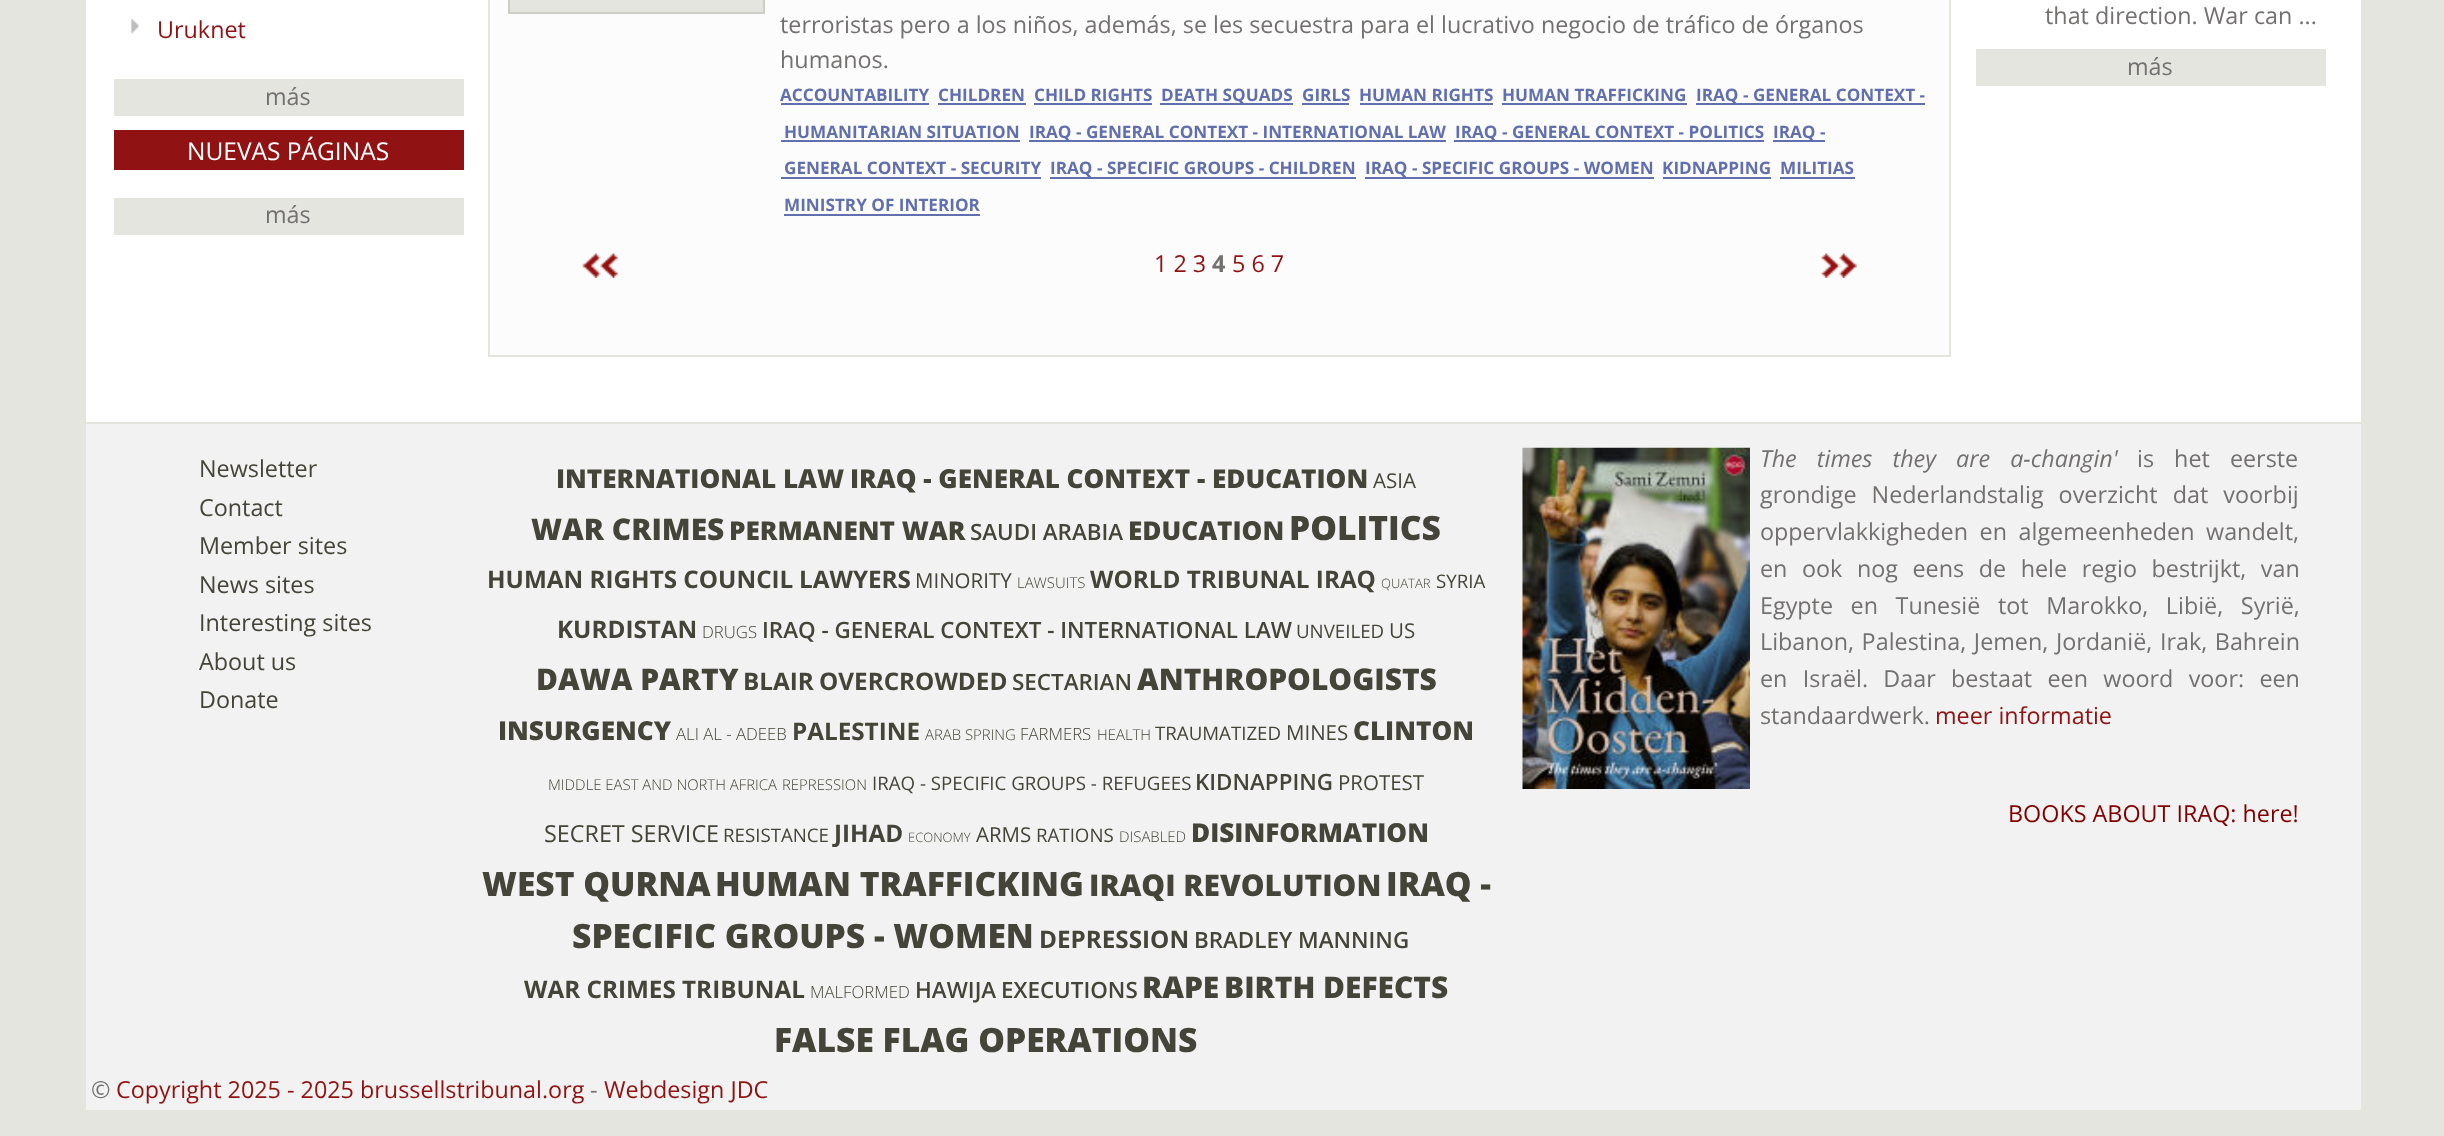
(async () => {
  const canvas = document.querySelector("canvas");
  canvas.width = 2444;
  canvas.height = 1136;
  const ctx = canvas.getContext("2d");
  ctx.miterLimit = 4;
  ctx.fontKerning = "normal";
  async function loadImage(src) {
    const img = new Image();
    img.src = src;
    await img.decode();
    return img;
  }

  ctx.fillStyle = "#e5e5df";
  ctx.fillRect(0, 0, 2444, 1136);
  ctx.fillStyle = "#ffffff";
  ctx.fillRect(86, 0, 2275, 422);
  ctx.drawImage(await loadImage("img/1.png"), 130, 18, 9, 16);
  for (const [x, y, w, h, color] of [
    [114, 79, 350, 37, "#e5e5df"],
    [114, 130, 350, 40, "#901212"],
    [114, 198, 350, 37, "#e5e5df"],
  ]) {
    ctx.fillStyle = color;
    ctx.fillRect(x, y, w, h);
  }
  ctx.fillStyle = "#fcfcfc";
  ctx.beginPath();
  ctx.rect(489, -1, 1461, 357);
  ctx.fill();
  ctx.strokeStyle = "#e5e5df";
  ctx.lineWidth = 2;
  ctx.stroke();
  ctx.fillStyle = "#e5e5df";
  ctx.beginPath();
  ctx.rect(509, -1, 255, 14);
  ctx.fill();
  ctx.strokeStyle = "#cecec5";
  ctx.stroke();
  for (const [x, y, w, h, color] of [
    [781, 103, 148, 2, "#616faf"],
    [938, 103, 88, 2, "#616faf"],
    [1034, 103, 118, 2, "#616faf"],
    [1160, 103, 133, 2, "#616faf"],
    [1302, 103, 47, 2, "#616faf"],
    [1360, 103, 133, 2, "#616faf"],
    [1502, 103, 185, 2, "#616faf"],
    [1696, 103, 229, 2, "#616faf"],
    [781, 140, 239, 2, "#616faf"],
    [1029, 140, 417, 2, "#616faf"],
    [1454, 140, 310, 2, "#616faf"],
    [1773, 140, 52, 2, "#616faf"],
    [781, 177, 260, 2, "#616faf"],
    [1050, 177, 306, 2, "#616faf"],
    [1365, 177, 289, 2, "#616faf"],
    [1663, 177, 108, 2, "#616faf"],
    [1780, 177, 75, 2, "#616faf"],
    [784, 214, 196, 2, "#616faf"],
  ]) {
    ctx.fillStyle = color;
    ctx.fillRect(x, y, w, h);
  }
  ctx.drawImage(await loadImage("img/2.png"), 582, 253, 36, 25);
  ctx.drawImage(await loadImage("img/3.png"), 1821, 253, 36, 25);
  ctx.fillStyle = "#e5e5df";
  ctx.fillRect(1976, 49, 350, 37);
  ctx.fillStyle = "#f2f2f2";
  ctx.fillRect(86, 424, 2275, 686);
  ctx.drawImage(await loadImage("img/4.png"), 1522, 447, 228, 342);
  ctx.font = "23.35px Open Sans";
  ctx.fillStyle = "#901212";
  ctx.fillText("Uruknet", 157, 38);
  ctx.fillStyle = "#737070";
  ctx.fillText("más", 265, 105);
  ctx.font = "24.5px Open Sans";
  ctx.fillStyle = "#ffffff";
  ctx.fillText("NUEVAS PÁGINAS", 187, 160);
  ctx.font = "23.35px Open Sans";
  ctx.fillStyle = "#737070";
  for (const [text, x, y] of [
    ["más", 265, 223],
    ["terroristas pero a los niños, además, se les secuestra para el lucrativo negocio de tráfico de órganos", 780, 33],
    ["humanos.", 780, 68],
  ]) {
    ctx.fillText(text, x, y);
  }
  ctx.font = "bold 17.15px Open Sans";
  ctx.fillStyle = "#616faf";
  for (const [text, x, y] of [
    ["ACCOUNTABILITY", 780, 101],
    ["CHILDREN", 938, 101],
    ["CHILD RIGHTS", 1034, 101],
    ["DEATH SQUADS", 1161, 101],
    ["GIRLS", 1302, 101],
    ["HUMAN RIGHTS", 1359, 101],
    ["HUMAN TRAFFICKING", 1502, 101],
    ["IRAQ - GENERAL CONTEXT -", 1696, 101],
    ["HUMANITARIAN SITUATION", 784, 138],
    ["IRAQ - GENERAL CONTEXT - INTERNATIONAL LAW", 1029, 138],
    ["IRAQ - GENERAL CONTEXT - POLITICS", 1455, 138],
    ["IRAQ -", 1773, 138],
    ["GENERAL CONTEXT - SECURITY", 784, 174],
    ["IRAQ - SPECIFIC GROUPS - CHILDREN", 1050, 174],
    ["IRAQ - SPECIFIC GROUPS - WOMEN", 1365, 174],
    ["KIDNAPPING", 1662, 174],
    ["MILITIAS", 1780, 174],
    ["MINISTRY OF INTERIOR", 784, 211],
  ]) {
    ctx.fillText(text, x, y);
  }
  ctx.font = "23.35px Open Sans";
  ctx.fillStyle = "#901212";
  ctx.fillText("1 2 3", 1154, 272);
  ctx.font = "bold 23.35px Open Sans";
  ctx.fillStyle = "#737070";
  ctx.fillText("4", 1212, 272);
  ctx.font = "23.35px Open Sans";
  ctx.fillStyle = "#901212";
  ctx.fillText("5 6 7", 1232, 272);
  ctx.fillStyle = "#737070";
  ctx.fillText("that direction. War can ...", 2045, 24);
  ctx.fillText("más", 2127, 75);
  ctx.fillStyle = "#454438";
  for (const [text, x, y] of [
    ["Newsletter", 199, 477],
    ["Contact", 199, 516],
    ["Member sites", 199, 554],
    ["News sites", 199, 593],
    ["Interesting sites", 199, 631],
    ["About us", 199, 670],
    ["Donate", 199, 708],
  ]) {
    ctx.fillText(text, x, y);
  }
  ctx.font = "800 26.1px Open Sans";
  ctx.fillText("INTERNATIONAL LAW", 556, 488);
  ctx.fillText("IRAQ - GENERAL CONTEXT - EDUCATION", 850, 488);
  ctx.font = "20.5px Open Sans";
  ctx.fillText("ASIA", 1373, 488);
  ctx.font = "800 29.9px Open Sans";
  ctx.fillText("WAR CRIMES", 531, 540);
  ctx.font = "800 26.1px Open Sans";
  ctx.fillText("PERMANENT WAR", 729, 540);
  ctx.font = "600 22.4px Open Sans";
  ctx.fillText("SAUDI ARABIA", 970, 540);
  ctx.font = "800 26.1px Open Sans";
  ctx.fillText("EDUCATION", 1128, 540);
  ctx.font = "800 33.6px Open Sans";
  ctx.fillText("POLITICS", 1289, 540);
  ctx.font = "bold 24.25px Open Sans";
  ctx.fillText("HUMAN RIGHTS COUNCIL", 487, 588);
  ctx.fillText("LAWYERS", 799, 588);
  ctx.font = "20.5px Open Sans";
  ctx.fillText("MINORITY", 915, 588);
  ctx.font = "300 14.9px Open Sans";
  ctx.fillText("LAWSUITS", 1017, 588);
  ctx.font = "bold 24.25px Open Sans";
  ctx.fillText("WORLD TRIBUNAL IRAQ", 1090, 588);
  ctx.font = "300 13px Open Sans";
  ctx.fillText("QUATAR", 1381, 588);
  ctx.font = "18.7px Open Sans";
  ctx.fillText("SYRIA", 1436, 588);
  ctx.font = "bold 24.25px Open Sans";
  ctx.fillText("KURDISTAN", 557, 638);
  ctx.font = "300 16.75px Open Sans";
  ctx.fillText("DRUGS", 702, 638);
  ctx.font = "600 22.4px Open Sans";
  ctx.fillText("IRAQ - GENERAL CONTEXT - INTERNATIONAL LAW", 762, 638);
  ctx.font = "18.7px Open Sans";
  ctx.fillText("UNVEILED", 1296, 638);
  ctx.font = "20.5px Open Sans";
  ctx.fillText("US", 1389, 638);
  ctx.font = "800 29.9px Open Sans";
  ctx.fillText("DAWA PARTY", 536, 690);
  ctx.font = "bold 24.25px Open Sans";
  ctx.fillText("BLAIR", 743, 690);
  ctx.fillText("OVERCROWDED", 819, 690);
  ctx.font = "600 22.4px Open Sans";
  ctx.fillText("SECTARIAN", 1012, 690);
  ctx.font = "800 29.9px Open Sans";
  ctx.fillText("ANTHROPOLOGISTS", 1137, 690);
  ctx.font = "800 26.1px Open Sans";
  ctx.fillText("INSURGENCY", 498, 740);
  ctx.font = "300 16.75px Open Sans";
  ctx.fillText("ALI AL - ADEEB", 676, 740);
  ctx.font = "bold 24.25px Open Sans";
  ctx.fillText("PALESTINE", 792, 740);
  ctx.font = "300 14.9px Open Sans";
  ctx.fillText("ARAB SPRING", 925, 740);
  ctx.font = "300 16.75px Open Sans";
  ctx.fillText("FARMERS", 1020, 740);
  ctx.font = "300 14.9px Open Sans";
  ctx.fillText("HEALTH", 1097, 740);
  ctx.font = "18.7px Open Sans";
  ctx.fillText("TRAUMATIZED", 1155, 740);
  ctx.font = "20.5px Open Sans";
  ctx.fillText("MINES", 1286, 740);
  ctx.font = "800 26.1px Open Sans";
  ctx.fillText("CLINTON", 1353, 740);
  ctx.font = "300 14.9px Open Sans";
  ctx.fillText("MIDDLE EAST AND NORTH AFRICA", 548, 790);
  ctx.fillText("REPRESSION", 782, 790);
  ctx.font = "18.7px Open Sans";
  ctx.fillText("IRAQ - SPECIFIC GROUPS - REFUGEES", 872, 790);
  ctx.font = "600 22.4px Open Sans";
  ctx.fillText("KIDNAPPING", 1195, 790);
  ctx.font = "20.5px Open Sans";
  ctx.fillText("PROTEST", 1338, 790);
  ctx.font = "23.35px Open Sans";
  ctx.fillText("SECRET SERVICE", 544, 842);
  ctx.font = "18.7px Open Sans";
  ctx.fillText("RESISTANCE", 723, 842);
  ctx.font = "bold 24.25px Open Sans";
  ctx.fillText("JIHAD", 834, 842);
  ctx.font = "300 13px Open Sans";
  ctx.fillText("ECONOMY", 908, 842);
  ctx.font = "20.5px Open Sans";
  ctx.fillText("ARMS", 976, 842);
  ctx.font = "18.7px Open Sans";
  ctx.fillText("RATIONS", 1036, 842);
  ctx.font = "300 14.9px Open Sans";
  ctx.fillText("DISABLED", 1119, 842);
  ctx.font = "800 26.1px Open Sans";
  ctx.fillText("DISINFORMATION", 1191, 842);
  ctx.font = "800 33.6px Open Sans";
  ctx.fillText("WEST QURNA", 482, 896);
  ctx.fillText("HUMAN TRAFFICKING", 715, 896);
  ctx.font = "800 29.9px Open Sans";
  ctx.fillText("IRAQI REVOLUTION", 1089, 896);
  ctx.font = "800 33.6px Open Sans";
  ctx.fillText("IRAQ -", 1386, 896);
  ctx.fillText("SPECIFIC GROUPS - WOMEN", 572, 948);
  ctx.font = "bold 24.25px Open Sans";
  ctx.fillText("DEPRESSION", 1039, 948);
  ctx.font = "600 22.4px Open Sans";
  ctx.fillText("BRADLEY MANNING", 1194, 948);
  ctx.font = "bold 24.25px Open Sans";
  ctx.fillText("WAR CRIMES TRIBUNAL", 524, 998);
  ctx.font = "300 16.75px Open Sans";
  ctx.fillText("MALFORMED", 810, 998);
  ctx.font = "600 22.4px Open Sans";
  ctx.fillText("HAWIJA", 915, 998);
  ctx.fillText("EXECUTIONS", 1001, 998);
  ctx.font = "800 29.9px Open Sans";
  ctx.fillText("RAPE", 1142, 998);
  ctx.fillText("BIRTH DEFECTS", 1224, 998);
  ctx.font = "800 33.6px Open Sans";
  ctx.fillText("FALSE FLAG OPERATIONS", 774, 1052);
  ctx.wordSpacing = "14px";
  ctx.font = "italic 23.35px Open Sans";
  ctx.fillStyle = "#737070";
  ctx.fillText("The times they are a-changin'", 1760, 467);
  ctx.font = "23.35px Open Sans";
  ctx.fillText("is het eerste", 2137, 467);
  ctx.wordSpacing = "9px";
  ctx.fillText("grondige Nederlandstalig overzicht dat voorbij", 1760, 503);
  ctx.wordSpacing = "5.5px";
  ctx.fillText("oppervlakkigheden en algemeenheden wandelt,", 1760, 540);
  ctx.wordSpacing = "8.5px";
  ctx.fillText("en ook nog eens de hele regio bestrijkt, van", 1760, 577);
  ctx.wordSpacing = "11.5px";
  ctx.fillText("Egypte en Tunesië tot Marokko, Libië, Syrië,", 1760, 614);
  ctx.wordSpacing = "1.5px";
  ctx.fillText("Libanon, Palestina, Jemen, Jordanië, Irak, Bahrein", 1760, 650);
  ctx.wordSpacing = "9.25px";
  ctx.fillText("en Israël. Daar bestaat een woord voor: een", 1760, 687);
  ctx.wordSpacing = "0px";
  ctx.fillText("standaardwerk.", 1760, 724);
  ctx.fillStyle = "#901212";
  ctx.fillText("meer informatie", 1935, 724);
  ctx.fillStyle = "#800000";
  ctx.fillText("BOOKS ABOUT IRAQ: here!", 2008, 822);
  ctx.fillStyle = "#737070";
  ctx.fillText("©", 91, 1098);
  ctx.fillStyle = "#901212";
  ctx.fillText("Copyright 2025 - 2025 brussellstribunal.org", 116, 1098);
  ctx.fillStyle = "#737070";
  ctx.fillText("-", 590, 1098);
  ctx.fillStyle = "#901212";
  ctx.fillText("Webdesign JDC", 604, 1098);
})();
